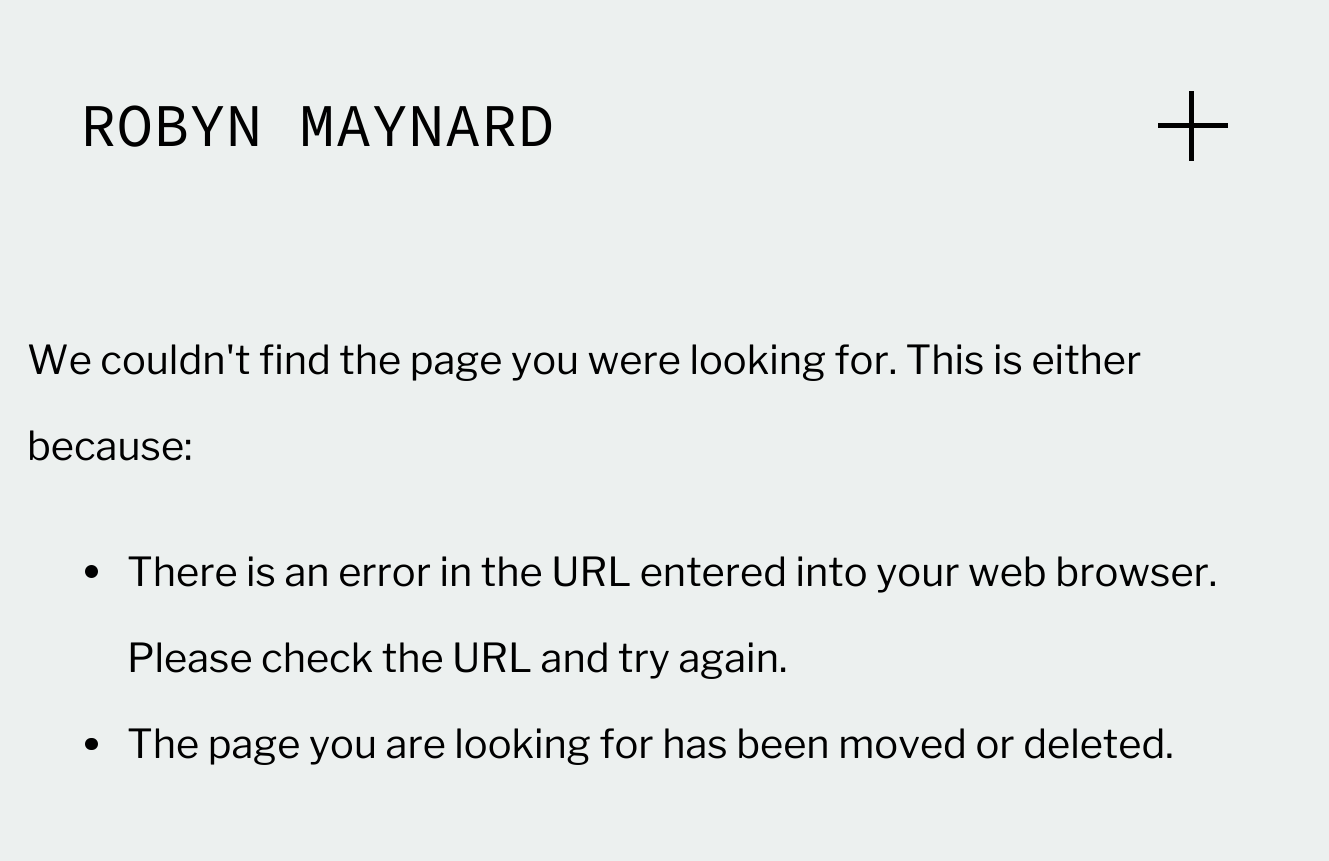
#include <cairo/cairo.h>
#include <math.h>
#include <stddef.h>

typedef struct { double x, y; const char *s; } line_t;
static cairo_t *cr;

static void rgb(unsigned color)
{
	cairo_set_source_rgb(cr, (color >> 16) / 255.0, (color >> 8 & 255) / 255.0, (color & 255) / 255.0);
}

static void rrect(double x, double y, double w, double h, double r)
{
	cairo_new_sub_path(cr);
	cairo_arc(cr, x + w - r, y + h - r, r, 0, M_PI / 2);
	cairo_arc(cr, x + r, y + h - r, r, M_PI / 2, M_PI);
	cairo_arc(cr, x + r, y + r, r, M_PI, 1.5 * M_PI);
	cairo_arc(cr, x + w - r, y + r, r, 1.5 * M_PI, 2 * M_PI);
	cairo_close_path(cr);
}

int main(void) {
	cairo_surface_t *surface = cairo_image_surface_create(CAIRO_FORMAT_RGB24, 1329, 861);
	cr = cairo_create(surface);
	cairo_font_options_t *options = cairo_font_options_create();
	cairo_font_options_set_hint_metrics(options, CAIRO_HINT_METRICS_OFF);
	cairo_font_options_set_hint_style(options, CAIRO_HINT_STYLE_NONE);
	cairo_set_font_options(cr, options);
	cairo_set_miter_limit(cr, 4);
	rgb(0xecf0ef);
	cairo_paint(cr);
	rgb(0x000000);
	cairo_rectangle(cr, 1158, 123, 70, 5);
	cairo_fill(cr);
	cairo_rectangle(cr, 1189, 91, 5, 70);
	cairo_fill(cr);
	cairo_arc(cr, 91.5, 571.5, 6.5, 0, 2 * M_PI);
	cairo_fill(cr);
	rrect(85, 738, 13, 12, 6);
	cairo_fill(cr);
	cairo_select_font_face(cr, "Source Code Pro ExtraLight", CAIRO_FONT_SLANT_NORMAL, CAIRO_FONT_WEIGHT_NORMAL);
	cairo_set_font_size(cr, 60.75);
	cairo_move_to(cr, 80, 146);
	cairo_show_text(cr, "ROBYN MAYNARD");
	cairo_select_font_face(cr, "Libre Franklin", CAIRO_FONT_SLANT_NORMAL, CAIRO_FONT_WEIGHT_NORMAL);
	cairo_set_font_size(cr, 39.85);
	{
		static const line_t items[] = {
			{27, 374, "We couldn't find the page you were looking for. This is either"},
			{27, 460, "because:"},
			{127, 586, "There is an error in the URL entered into your web browser."},
			{127, 672, "Please check the URL and try again."},
			{127, 758, "The page you are looking for has been moved or deleted."},
		};
		for (size_t i = 0; i < sizeof items / sizeof *items; i++) {
			cairo_move_to(cr, items[i].x, items[i].y);
			cairo_show_text(cr, items[i].s);
		}
	}
	cairo_surface_write_to_png(surface, "page.png");
	cairo_font_options_destroy(options);
	cairo_destroy(cr);
	cairo_surface_destroy(surface);
	return 0;
}
